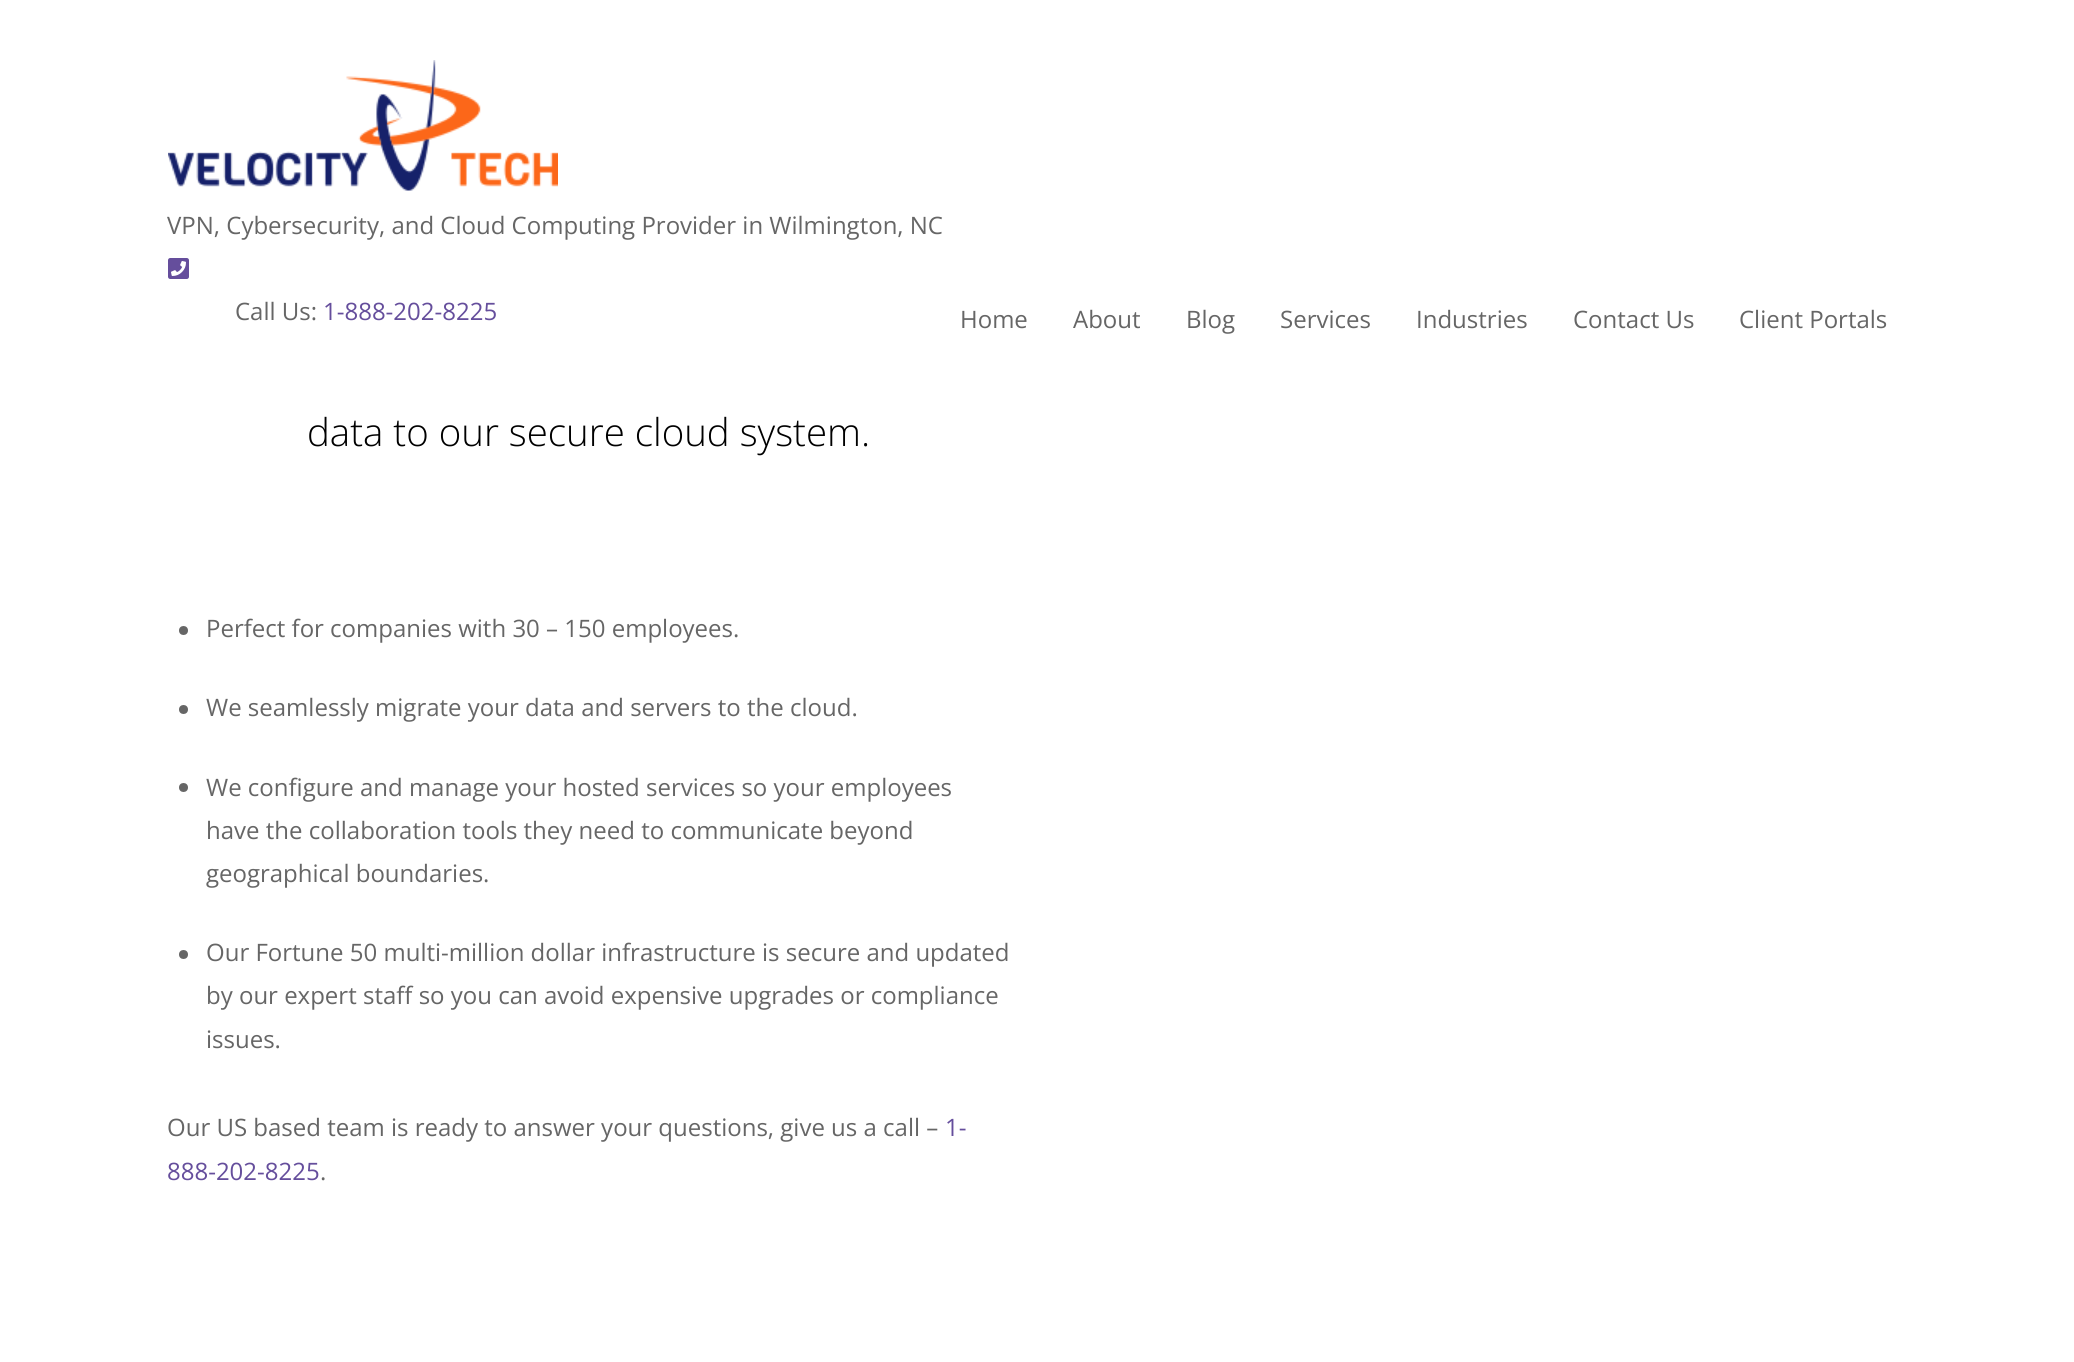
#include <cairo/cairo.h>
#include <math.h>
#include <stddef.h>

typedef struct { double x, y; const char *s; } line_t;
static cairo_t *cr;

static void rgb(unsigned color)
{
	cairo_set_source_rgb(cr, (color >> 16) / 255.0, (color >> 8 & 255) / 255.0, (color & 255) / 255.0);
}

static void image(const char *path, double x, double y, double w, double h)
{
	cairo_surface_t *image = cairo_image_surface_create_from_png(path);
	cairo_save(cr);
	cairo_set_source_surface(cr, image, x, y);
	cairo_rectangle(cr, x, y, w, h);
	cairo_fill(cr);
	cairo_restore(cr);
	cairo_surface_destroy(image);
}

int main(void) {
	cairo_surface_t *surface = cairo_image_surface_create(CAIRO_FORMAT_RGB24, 2074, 1362);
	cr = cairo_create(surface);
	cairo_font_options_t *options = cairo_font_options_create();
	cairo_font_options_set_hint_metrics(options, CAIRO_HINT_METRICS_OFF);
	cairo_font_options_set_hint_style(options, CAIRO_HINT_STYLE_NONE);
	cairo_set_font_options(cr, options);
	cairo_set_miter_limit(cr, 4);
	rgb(0xffffff);
	cairo_paint(cr);
	image("img/1.png", 168, 60, 390, 131);
	image("img/2.png", 168, 258, 21, 21);
	rgb(0x666666);
	cairo_arc(cr, 183.5, 630.5, 4.5, 0, 2 * M_PI);
	cairo_fill(cr);
	cairo_arc(cr, 183.5, 709.5, 4.5, 0, 2 * M_PI);
	cairo_fill(cr);
	cairo_arc(cr, 183.5, 787.5, 4.5, 0, 2 * M_PI);
	cairo_fill(cr);
	cairo_arc(cr, 183.5, 954.5, 4.5, 0, 2 * M_PI);
	cairo_fill(cr);
	cairo_select_font_face(cr, "Open Sans", CAIRO_FONT_SLANT_NORMAL, CAIRO_FONT_WEIGHT_NORMAL);
	cairo_set_font_size(cr, 24);
	cairo_move_to(cr, 167, 234);
	cairo_show_text(cr, "VPN, Cybersecurity, and Cloud Computing Provider in Wilmington, NC");
	cairo_move_to(cr, 235, 320);
	cairo_show_text(cr, "Call Us:");
	rgb(0x654e9c);
	cairo_move_to(cr, 323, 320);
	cairo_show_text(cr, "1-888-202-8225");
	rgb(0x666666);
	{
		static const line_t items[] = {
			{960, 328, "Home"},
			{1073, 328, "About"},
			{1186, 328, "Blog"},
			{1280, 328, "Services"},
			{1416, 328, "Industries"},
			{1573, 328, "Contact Us"},
			{1739, 328, "Client Portals"},
		};
		for (size_t i = 0; i < sizeof items / sizeof *items; i++) {
			cairo_move_to(cr, items[i].x, items[i].y);
			cairo_show_text(cr, items[i].s);
		}
	}
	cairo_select_font_face(cr, "Open Sans Light", CAIRO_FONT_SLANT_NORMAL, CAIRO_FONT_WEIGHT_NORMAL);
	cairo_set_font_size(cr, 38.4);
	rgb(0x000000);
	cairo_move_to(cr, 307, 446);
	cairo_show_text(cr, "data to our secure cloud system.");
	cairo_select_font_face(cr, "Open Sans", CAIRO_FONT_SLANT_NORMAL, CAIRO_FONT_WEIGHT_NORMAL);
	cairo_set_font_size(cr, 24);
	rgb(0x666666);
	{
		static const line_t items[] = {
			{206, 637, "Perfect for companies with 30 – 150 employees."},
			{206, 716, "We seamlessly migrate your data and servers to the cloud."},
			{206, 796, "We configure and manage your hosted services so your employees"},
			{206, 839, "have the collaboration tools they need to communicate beyond"},
			{206, 882, "geographical boundaries."},
			{206, 961, "Our Fortune 50 multi-million dollar infrastructure is secure and updated"},
			{206, 1004, "by our expert staff so you can avoid expensive upgrades or compliance"},
			{206, 1048, "issues."},
			{167, 1136, "Our US based team is ready to answer your questions, give us a call –"},
		};
		for (size_t i = 0; i < sizeof items / sizeof *items; i++) {
			cairo_move_to(cr, items[i].x, items[i].y);
			cairo_show_text(cr, items[i].s);
		}
	}
	rgb(0x654e9c);
	cairo_move_to(cr, 945, 1136);
	cairo_show_text(cr, "1-");
	cairo_move_to(cr, 167, 1180);
	cairo_show_text(cr, "888-202-8225");
	rgb(0x666666);
	cairo_move_to(cr, 320, 1180);
	cairo_show_text(cr, ".");
	cairo_surface_write_to_png(surface, "page.png");
	cairo_font_options_destroy(options);
	cairo_destroy(cr);
	cairo_surface_destroy(surface);
	return 0;
}
